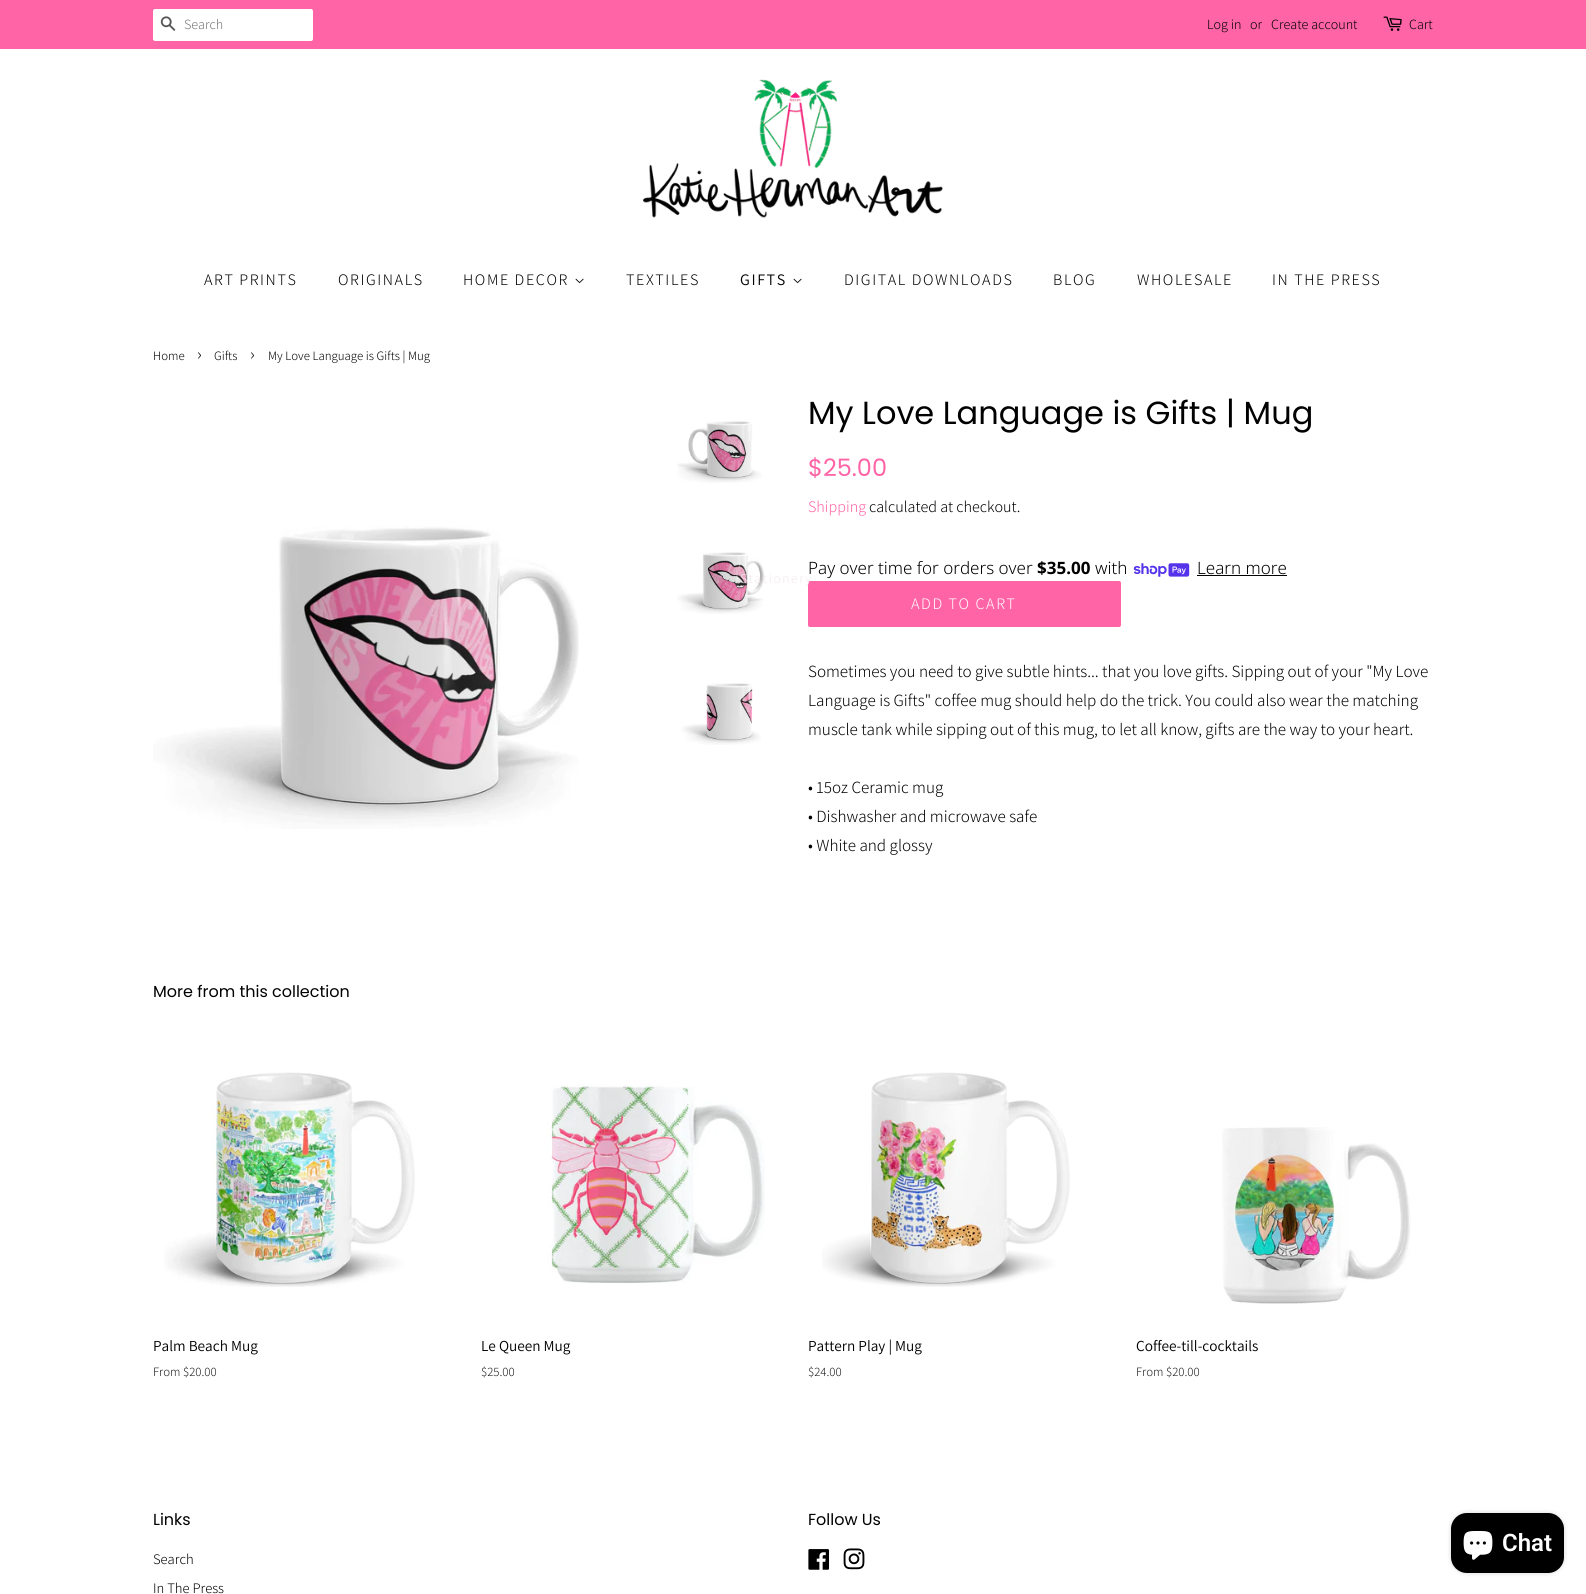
#include <cairo/cairo.h>
#include <math.h>
#include <stddef.h>

typedef struct { double x, y; const char *s; } line_t;
static cairo_t *cr;

static void rgb(unsigned color)
{
	cairo_set_source_rgb(cr, (color >> 16) / 255.0, (color >> 8 & 255) / 255.0, (color & 255) / 255.0);
}

static void tracked(double x, double y, const char *s, double letter, double word)
{
	cairo_move_to(cr, x, y);
	while (*s) {
		char ch[5] = {0};
		int n = 0;
		do ch[n++] = *s++; while ((*s & 0xC0) == 0x80);
		cairo_show_text(cr, ch);
		cairo_rel_move_to(cr, letter + word * (*ch == ' '), 0);
	}
}

static void rrect(double x, double y, double w, double h, double r)
{
	cairo_new_sub_path(cr);
	cairo_arc(cr, x + w - r, y + h - r, r, 0, M_PI / 2);
	cairo_arc(cr, x + r, y + h - r, r, M_PI / 2, M_PI);
	cairo_arc(cr, x + r, y + r, r, M_PI, 1.5 * M_PI);
	cairo_arc(cr, x + w - r, y + r, r, 1.5 * M_PI, 2 * M_PI);
	cairo_close_path(cr);
}

static void soft_shadow(double x, double y, double w, double h, double r, double blur, double alpha)
{
	cairo_push_group_with_content(cr, CAIRO_CONTENT_ALPHA);
	cairo_set_operator(cr, CAIRO_OPERATOR_SOURCE);
	for (int i = 15; i >= -15 && fmin(w, h) + blur * i / 3 > 0; i -= 2) {
		double e = blur * i / 6;
		cairo_set_source_rgba(cr, 0, 0, 0, alpha * erfc((i - 1) / 8.5) / 2);
		rrect(x - e, y - e, w + 2 * e, h + 2 * e, fmax(0, fmin(r + e + blur * .6, fmin(w, h) / 2 + e)));
		cairo_fill(cr);
	}
	cairo_pattern_t *soft = cairo_pop_group(cr);
	cairo_mask(cr, soft);
	cairo_pattern_destroy(soft);
}

static void image(const char *path, double x, double y, double w, double h)
{
	cairo_surface_t *image = cairo_image_surface_create_from_png(path);
	cairo_save(cr);
	cairo_set_source_surface(cr, image, x, y);
	cairo_rectangle(cr, x, y, w, h);
	cairo_fill(cr);
	cairo_restore(cr);
	cairo_surface_destroy(image);
}

int main(void) {
	cairo_surface_t *surface = cairo_image_surface_create(CAIRO_FORMAT_RGB24, 1586, 1594);
	cr = cairo_create(surface);
	cairo_font_options_t *options = cairo_font_options_create();
	cairo_font_options_set_hint_metrics(options, CAIRO_HINT_METRICS_OFF);
	cairo_font_options_set_hint_style(options, CAIRO_HINT_STYLE_NONE);
	cairo_set_font_options(cr, options);
	cairo_set_miter_limit(cr, 4);
	rgb(0xffffff);
	cairo_paint(cr);
	rgb(0xff64a6);
	cairo_rectangle(cr, 0, 0, 1586, 49);
	cairo_fill(cr);
	rgb(0xffffff);
	rrect(153, 9, 160, 32, 2);
	cairo_fill(cr);
	image("img/1.png", 160, 16, 16, 15);
	image("img/2.png", 1383, 16, 19, 15);
	image("img/3.png", 643, 79, 300, 139);
	image("img/4.png", 575, 278, 9, 6);
	image("img/4.png", 793, 278, 9, 6);
	image("img/5.png", 153, 526, 426, 303);
	image("img/6.png", 677, 421, 85, 62);
	image("img/7.png", 677, 552, 87, 62);
	image("img/8.png", 681, 683, 80, 62);
	image("img/9.png", 1133, 563, 57, 14);
	rgb(0x000000);
	cairo_rectangle(cr, 1197, 575, 90, 1);
	cairo_fill(cr);
	rgb(0xff64a6);
	rrect(808, 581, 313, 46, 2);
	cairo_fill(cr);
	image("img/10.png", 164, 1072, 251, 215);
	image("img/11.png", 547, 1084, 218, 200);
	image("img/12.png", 822, 1072, 248, 215);
	image("img/13.png", 1222, 1127, 189, 177);
	image("img/14.png", 808, 1549, 21, 21);
	image("img/15.png", 843, 1548, 22, 22);
	rgb(0x000000);
	soft_shadow(1451, 1513, 113, 60, 16, 2.5, 0.15);
	rgb(0x000000);
	rrect(1451, 1513, 113, 60, 16);
	cairo_fill(cr);
	image("img/16.png", 1463, 1531, 30, 29);
	cairo_select_font_face(cr, "Assistant Light", CAIRO_FONT_SLANT_NORMAL, CAIRO_FONT_WEIGHT_NORMAL);
	cairo_set_font_size(cr, 14);
	rgb(0x757575);
	cairo_move_to(cr, 184, 29);
	cairo_show_text(cr, "Search");
	rgb(0x000000);
	{
		static const line_t items[] = {
			{1207, 29, "Log in"},
			{1250, 29, "or"},
			{1271, 29, "Create account"},
			{1409, 29, "Cart"},
		};
		for (size_t i = 0; i < sizeof items / sizeof *items; i++) {
			cairo_move_to(cr, items[i].x, items[i].y);
			cairo_show_text(cr, items[i].s);
		}
	}
	cairo_set_font_size(cr, 16);
	{
		static const line_t items[] = {
			{204, 285, "ART PRINTS"},
			{338, 285, "ORIGINALS"},
			{463, 285, "HOME DECOR"},
			{626, 285, "TEXTILES"},
		};
		for (size_t i = 0; i < sizeof items / sizeof *items; i++) {
			tracked(items[i].x, items[i].y, items[i].s, 1.6, 0);
		}
	}
	cairo_select_font_face(cr, "Assistant", CAIRO_FONT_SLANT_NORMAL, CAIRO_FONT_WEIGHT_NORMAL);
	tracked(740, 285, "GIFTS", 1.6, 0);
	cairo_select_font_face(cr, "Assistant Light", CAIRO_FONT_SLANT_NORMAL, CAIRO_FONT_WEIGHT_NORMAL);
	{
		static const line_t items[] = {
			{844, 285, "DIGITAL DOWNLOADS"},
			{1053, 285, "BLOG"},
			{1137, 285, "WHOLESALE"},
			{1272, 285, "IN THE PRESS"},
		};
		for (size_t i = 0; i < sizeof items / sizeof *items; i++) {
			tracked(items[i].x, items[i].y, items[i].s, 1.6, 0);
		}
	}
	cairo_set_font_size(cr, 12.75);
	cairo_move_to(cr, 153, 360);
	cairo_show_text(cr, "Home");
	cairo_set_font_size(cr, 18);
	cairo_move_to(cr, 197, 360);
	cairo_show_text(cr, "›");
	cairo_set_font_size(cr, 12.75);
	cairo_move_to(cr, 214, 360);
	cairo_show_text(cr, "Gifts");
	cairo_set_font_size(cr, 18);
	cairo_move_to(cr, 250, 360);
	cairo_show_text(cr, "›");
	cairo_set_font_size(cr, 12.75);
	cairo_move_to(cr, 268, 360);
	cairo_show_text(cr, "My Love Language is Gifts | Mug");
	cairo_select_font_face(cr, "Poppins", CAIRO_FONT_SLANT_NORMAL, CAIRO_FONT_WEIGHT_NORMAL);
	cairo_set_font_size(cr, 32);
	cairo_move_to(cr, 808, 424);
	cairo_show_text(cr, "My Love Language is Gifts | Mug");
	cairo_set_font_size(cr, 24);
	rgb(0xff64a6);
	cairo_move_to(cr, 808, 476);
	cairo_show_text(cr, "$25.00");
	cairo_select_font_face(cr, "Assistant Light", CAIRO_FONT_SLANT_NORMAL, CAIRO_FONT_WEIGHT_NORMAL);
	cairo_set_font_size(cr, 16);
	cairo_move_to(cr, 808, 512);
	cairo_show_text(cr, "Shipping");
	rgb(0x000000);
	cairo_move_to(cr, 869, 512);
	cairo_show_text(cr, "calculated at checkout.");
	cairo_select_font_face(cr, "Noto Sans Light", CAIRO_FONT_SLANT_NORMAL, CAIRO_FONT_WEIGHT_NORMAL);
	cairo_set_font_size(cr, 17);
	cairo_move_to(cr, 808, 574);
	cairo_show_text(cr, "Pay over time for orders over");
	cairo_select_font_face(cr, "Assistant Light", CAIRO_FONT_SLANT_NORMAL, CAIRO_FONT_WEIGHT_NORMAL);
	cairo_set_font_size(cr, 13.5);
	rgb(0xf2eaee);
	tracked(740, 583, "Stationery", 1.6, 0);
	cairo_select_font_face(cr, "Noto Sans", CAIRO_FONT_SLANT_NORMAL, CAIRO_FONT_WEIGHT_BOLD);
	cairo_set_font_size(cr, 17);
	rgb(0x000000);
	cairo_move_to(cr, 1037, 574);
	cairo_show_text(cr, "$35.00");
	cairo_select_font_face(cr, "Noto Sans Light", CAIRO_FONT_SLANT_NORMAL, CAIRO_FONT_WEIGHT_NORMAL);
	cairo_move_to(cr, 1095, 574);
	cairo_show_text(cr, "with");
	cairo_move_to(cr, 1197, 574);
	cairo_show_text(cr, "Learn more");
	cairo_select_font_face(cr, "Assistant Light", CAIRO_FONT_SLANT_NORMAL, CAIRO_FONT_WEIGHT_NORMAL);
	cairo_set_font_size(cr, 16);
	rgb(0xffffff);
	tracked(911, 609, "ADD TO CART", 1.6, 0);
	cairo_set_font_size(cr, 17);
	rgb(0x000000);
	{
		static const line_t items[] = {
			{808, 677, "Sometimes you need to give subtle hints... that you love gifts. Sipping out of your \"My Love"},
			{808, 706, "Language is Gifts\" coffee mug should help do the trick. You could also wear the matching"},
			{808, 735, "muscle tank while sipping out of this mug, to let all know, gifts are the way to your heart."},
			{808, 793, "• 15oz Ceramic mug"},
			{808, 822, "• Dishwasher and microwave safe"},
			{808, 851, "• White and glossy"},
		};
		for (size_t i = 0; i < sizeof items / sizeof *items; i++) {
			cairo_move_to(cr, items[i].x, items[i].y);
			cairo_show_text(cr, items[i].s);
		}
	}
	cairo_select_font_face(cr, "Poppins", CAIRO_FONT_SLANT_NORMAL, CAIRO_FONT_WEIGHT_NORMAL);
	cairo_set_font_size(cr, 16);
	cairo_move_to(cr, 153, 997);
	cairo_show_text(cr, "More from this collection");
	cairo_select_font_face(cr, "Assistant", CAIRO_FONT_SLANT_NORMAL, CAIRO_FONT_WEIGHT_NORMAL);
	cairo_set_font_size(cr, 15.25);
	cairo_move_to(cr, 153, 1351);
	cairo_show_text(cr, "Palm Beach Mug");
	cairo_select_font_face(cr, "Assistant Light", CAIRO_FONT_SLANT_NORMAL, CAIRO_FONT_WEIGHT_NORMAL);
	cairo_set_font_size(cr, 12.75);
	rgb(0x1a1a1a);
	cairo_move_to(cr, 153, 1376);
	cairo_show_text(cr, "From $20.00");
	cairo_select_font_face(cr, "Assistant", CAIRO_FONT_SLANT_NORMAL, CAIRO_FONT_WEIGHT_NORMAL);
	cairo_set_font_size(cr, 15.25);
	rgb(0x000000);
	cairo_move_to(cr, 481, 1351);
	cairo_show_text(cr, "Le Queen Mug");
	cairo_select_font_face(cr, "Assistant Light", CAIRO_FONT_SLANT_NORMAL, CAIRO_FONT_WEIGHT_NORMAL);
	cairo_set_font_size(cr, 12.75);
	rgb(0x1a1a1a);
	cairo_move_to(cr, 481, 1376);
	cairo_show_text(cr, "$25.00");
	cairo_select_font_face(cr, "Assistant", CAIRO_FONT_SLANT_NORMAL, CAIRO_FONT_WEIGHT_NORMAL);
	cairo_set_font_size(cr, 15.25);
	rgb(0x000000);
	cairo_move_to(cr, 808, 1351);
	cairo_show_text(cr, "Pattern Play | Mug");
	cairo_select_font_face(cr, "Assistant Light", CAIRO_FONT_SLANT_NORMAL, CAIRO_FONT_WEIGHT_NORMAL);
	cairo_set_font_size(cr, 12.75);
	rgb(0x1a1a1a);
	cairo_move_to(cr, 808, 1376);
	cairo_show_text(cr, "$24.00");
	cairo_select_font_face(cr, "Assistant", CAIRO_FONT_SLANT_NORMAL, CAIRO_FONT_WEIGHT_NORMAL);
	cairo_set_font_size(cr, 15.25);
	rgb(0x000000);
	cairo_move_to(cr, 1136, 1351);
	cairo_show_text(cr, "Coffee-till-cocktails");
	cairo_select_font_face(cr, "Assistant Light", CAIRO_FONT_SLANT_NORMAL, CAIRO_FONT_WEIGHT_NORMAL);
	cairo_set_font_size(cr, 12.75);
	rgb(0x1a1a1a);
	cairo_move_to(cr, 1136, 1376);
	cairo_show_text(cr, "From $20.00");
	cairo_select_font_face(cr, "Poppins", CAIRO_FONT_SLANT_NORMAL, CAIRO_FONT_WEIGHT_NORMAL);
	cairo_set_font_size(cr, 16);
	rgb(0x000000);
	cairo_move_to(cr, 153, 1525);
	cairo_show_text(cr, "Links");
	cairo_select_font_face(cr, "Assistant Light", CAIRO_FONT_SLANT_NORMAL, CAIRO_FONT_WEIGHT_NORMAL);
	cairo_set_font_size(cr, 14.5);
	cairo_move_to(cr, 153, 1564);
	cairo_show_text(cr, "Search");
	cairo_move_to(cr, 153, 1593);
	cairo_show_text(cr, "In The Press");
	cairo_select_font_face(cr, "Poppins", CAIRO_FONT_SLANT_NORMAL, CAIRO_FONT_WEIGHT_NORMAL);
	cairo_set_font_size(cr, 16);
	cairo_move_to(cr, 808, 1525);
	cairo_show_text(cr, "Follow Us");
	cairo_select_font_face(cr, "Roboto SemiBold", CAIRO_FONT_SLANT_NORMAL, CAIRO_FONT_WEIGHT_NORMAL);
	cairo_set_font_size(cr, 24);
	rgb(0xffffff);
	cairo_move_to(cr, 1502, 1551);
	cairo_show_text(cr, "Chat");
	cairo_surface_write_to_png(surface, "page.png");
	cairo_font_options_destroy(options);
	cairo_destroy(cr);
	cairo_surface_destroy(surface);
	return 0;
}
